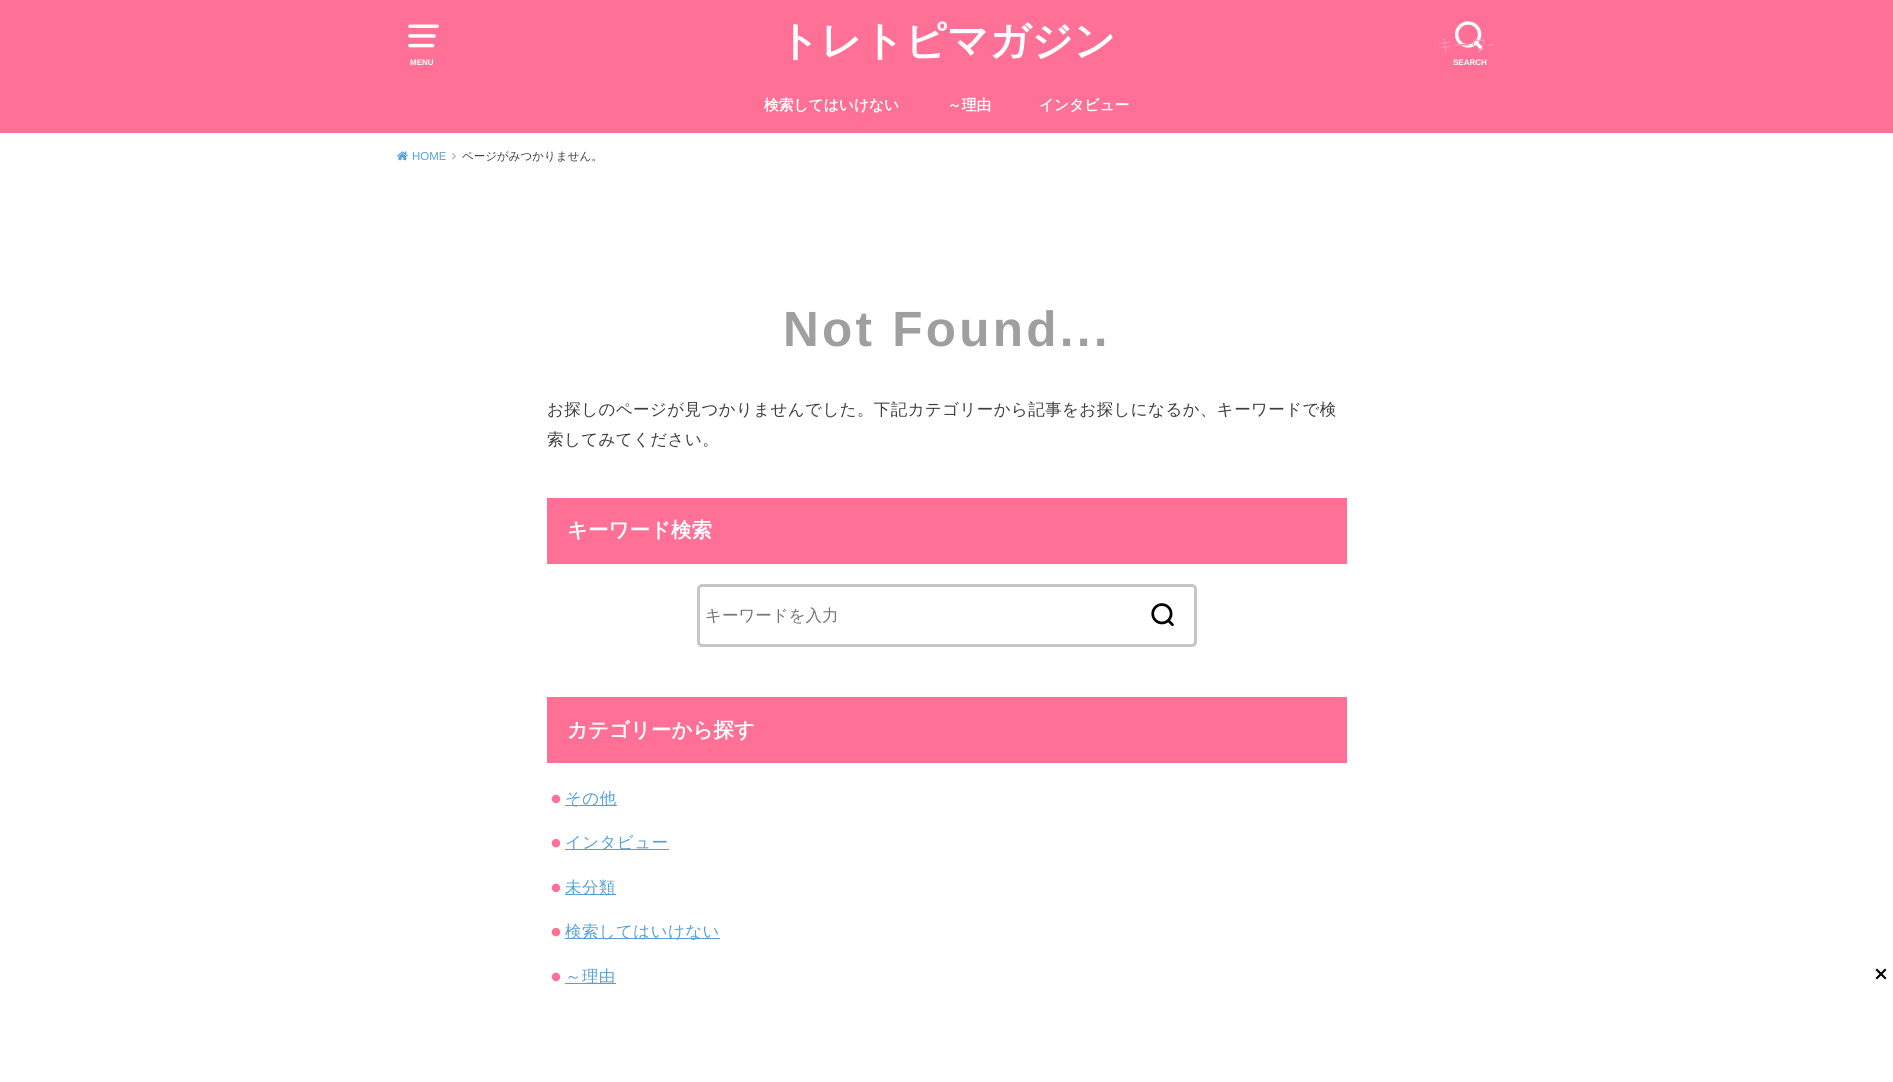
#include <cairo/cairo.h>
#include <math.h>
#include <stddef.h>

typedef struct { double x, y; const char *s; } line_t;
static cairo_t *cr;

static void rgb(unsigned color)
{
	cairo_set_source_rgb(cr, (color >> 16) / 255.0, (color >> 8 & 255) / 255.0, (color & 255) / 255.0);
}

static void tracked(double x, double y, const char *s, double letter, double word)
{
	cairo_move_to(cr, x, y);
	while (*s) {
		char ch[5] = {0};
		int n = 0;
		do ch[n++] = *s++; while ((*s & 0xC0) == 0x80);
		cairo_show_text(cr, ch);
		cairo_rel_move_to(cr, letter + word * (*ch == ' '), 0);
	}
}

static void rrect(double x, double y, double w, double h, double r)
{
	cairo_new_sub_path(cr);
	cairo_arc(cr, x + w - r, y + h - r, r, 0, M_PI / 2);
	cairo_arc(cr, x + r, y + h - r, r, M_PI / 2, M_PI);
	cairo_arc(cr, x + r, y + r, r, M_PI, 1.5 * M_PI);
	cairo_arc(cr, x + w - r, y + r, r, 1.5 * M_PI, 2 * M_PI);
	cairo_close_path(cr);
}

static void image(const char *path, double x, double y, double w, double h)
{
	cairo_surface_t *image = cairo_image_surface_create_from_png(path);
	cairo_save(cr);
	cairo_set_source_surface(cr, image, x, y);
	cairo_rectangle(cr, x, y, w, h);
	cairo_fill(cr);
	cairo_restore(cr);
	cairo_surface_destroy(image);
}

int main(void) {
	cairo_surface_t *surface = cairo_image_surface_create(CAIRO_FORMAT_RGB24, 1893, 1082);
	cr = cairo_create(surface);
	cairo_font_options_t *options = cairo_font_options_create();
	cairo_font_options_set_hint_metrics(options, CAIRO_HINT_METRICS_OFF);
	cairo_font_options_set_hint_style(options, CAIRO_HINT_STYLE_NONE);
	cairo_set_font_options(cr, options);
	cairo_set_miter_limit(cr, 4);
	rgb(0xffffff);
	cairo_paint(cr);
	rgb(0xff7096);
	cairo_rectangle(cr, 0, 0, 1893, 133);
	cairo_fill(cr);
	image("img/1.png", 408, 24, 31, 24);
	image("img/2.png", 1454, 21, 29, 29);
	image("img/3.png", 397, 151, 11, 10);
	image("img/4.png", 452, 153, 4, 7);
	cairo_rectangle(cr, 547, 498, 800, 66);
	cairo_fill(cr);
	rrect(698.5, 585.5, 497, 60, 3.5);
	rgb(0xc6c6c6);
	cairo_set_line_width(cr, 3);
	cairo_stroke(cr);
	image("img/5.png", 1151, 603, 23, 24);
	rgb(0xff7096);
	cairo_rectangle(cr, 547, 697, 800, 66);
	cairo_fill(cr);
	image("img/6.png", 551, 794, 10, 10);
	rgb(0x57a1d8);
	cairo_rectangle(cr, 565, 805, 52, 1);
	cairo_fill(cr);
	image("img/7.png", 551, 838, 10, 10);
	cairo_rectangle(cr, 565, 849, 104, 1);
	cairo_fill(cr);
	image("img/8.png", 551, 883, 10, 10);
	cairo_rectangle(cr, 565, 894, 51, 1);
	cairo_fill(cr);
	image("img/9.png", 551, 927, 10, 10);
	cairo_rectangle(cr, 565, 938, 155, 1);
	cairo_fill(cr);
	image("img/10.png", 551, 972, 10, 10);
	cairo_rectangle(cr, 565, 983, 51, 1);
	cairo_fill(cr);
	rgb(0x000000);
	cairo_new_path(cr);
	cairo_move_to(cr, 1885, 968.5);
	cairo_line_to(cr, 1886.5, 970);
	cairo_line_to(cr, 1877, 979.5);
	cairo_line_to(cr, 1875.5, 978);
	cairo_close_path(cr);
	cairo_fill(cr);
	cairo_new_path(cr);
	cairo_move_to(cr, 1875.5, 970);
	cairo_line_to(cr, 1877, 968.5);
	cairo_line_to(cr, 1886.5, 978);
	cairo_line_to(cr, 1885, 979.5);
	cairo_close_path(cr);
	cairo_fill(cr);
	cairo_select_font_face(cr, "Liberation Sans", CAIRO_FONT_SLANT_NORMAL, CAIRO_FONT_WEIGHT_BOLD);
	cairo_set_font_size(cr, 8);
	rgb(0xffffff);
	cairo_move_to(cr, 410, 65);
	cairo_show_text(cr, "MENU");
	cairo_select_font_face(cr, "WenQuanYi Zen Hei", CAIRO_FONT_SLANT_NORMAL, CAIRO_FONT_WEIGHT_BOLD);
	cairo_set_font_size(cr, 41.25);
	cairo_move_to(cr, 778, 55);
	cairo_show_text(cr, "トレトピマガジン");
	cairo_save(cr);
	cairo_rectangle(cr, 1437, 35, 56, 22);
	cairo_clip(cr);
	cairo_select_font_face(cr, "WenQuanYi Zen Hei Medium", CAIRO_FONT_SLANT_NORMAL, CAIRO_FONT_WEIGHT_NORMAL);
	cairo_set_font_size(cr, 16.5);
	rgb(0xff91ae);
	cairo_move_to(cr, 1437, 51);
	cairo_show_text(cr, "キーワー");
	cairo_restore(cr);
	cairo_select_font_face(cr, "Liberation Sans", CAIRO_FONT_SLANT_NORMAL, CAIRO_FONT_WEIGHT_BOLD);
	cairo_set_font_size(cr, 8);
	cairo_move_to(cr, 1453, 65);
	cairo_show_text(cr, "SEARCH");
	cairo_select_font_face(cr, "WenQuanYi Zen Hei", CAIRO_FONT_SLANT_NORMAL, CAIRO_FONT_WEIGHT_BOLD);
	cairo_set_font_size(cr, 14.75);
	{
		static const line_t items[] = {
			{764, 110, "検索してはいけない"},
			{947, 110, "～理由"},
			{1039, 110, "インタビュー"},
		};
		for (size_t i = 0; i < sizeof items / sizeof *items; i++) {
			cairo_move_to(cr, items[i].x, items[i].y);
			cairo_show_text(cr, items[i].s);
		}
	}
	cairo_select_font_face(cr, "Liberation Sans", CAIRO_FONT_SLANT_NORMAL, CAIRO_FONT_WEIGHT_NORMAL);
	cairo_set_font_size(cr, 11.5);
	rgb(0x57a1d8);
	cairo_move_to(cr, 412, 160);
	cairo_show_text(cr, "HOME");
	cairo_select_font_face(cr, "WenQuanYi Zen Hei Medium", CAIRO_FONT_SLANT_NORMAL, CAIRO_FONT_WEIGHT_NORMAL);
	rgb(0x3e3e3e);
	cairo_move_to(cr, 462, 160);
	cairo_show_text(cr, "ページがみつかりません。");
	cairo_select_font_face(cr, "Liberation Sans", CAIRO_FONT_SLANT_NORMAL, CAIRO_FONT_WEIGHT_BOLD);
	cairo_set_font_size(cr, 49.5);
	rgb(0x9f9f9f);
	tracked(783, 346, "Not Found...", 3.25, 0);
	cairo_select_font_face(cr, "WenQuanYi Zen Hei Medium", CAIRO_FONT_SLANT_NORMAL, CAIRO_FONT_WEIGHT_NORMAL);
	cairo_set_font_size(cr, 16.5);
	rgb(0x3e3e3e);
	tracked(547, 415, "お探しのページが見つかりませんでした。下記カテゴリーから記事をお探しになるか、キーワードで検", 0.4, 0);
	tracked(547, 445, "索してみてください。", 0.4, 0);
	cairo_select_font_face(cr, "WenQuanYi Zen Hei", CAIRO_FONT_SLANT_NORMAL, CAIRO_FONT_WEIGHT_BOLD);
	cairo_set_font_size(cr, 20.5);
	rgb(0xffffff);
	cairo_move_to(cr, 567, 537);
	cairo_show_text(cr, "キーワード検索");
	cairo_select_font_face(cr, "WenQuanYi Zen Hei Medium", CAIRO_FONT_SLANT_NORMAL, CAIRO_FONT_WEIGHT_NORMAL);
	cairo_set_font_size(cr, 16.5);
	rgb(0x757575);
	cairo_move_to(cr, 705, 621);
	cairo_show_text(cr, "キーワードを入力");
	cairo_select_font_face(cr, "WenQuanYi Zen Hei", CAIRO_FONT_SLANT_NORMAL, CAIRO_FONT_WEIGHT_BOLD);
	cairo_set_font_size(cr, 20.5);
	rgb(0xffffff);
	cairo_move_to(cr, 567, 737);
	cairo_show_text(cr, "カテゴリーから探す");
	cairo_select_font_face(cr, "WenQuanYi Zen Hei Medium", CAIRO_FONT_SLANT_NORMAL, CAIRO_FONT_WEIGHT_NORMAL);
	cairo_set_font_size(cr, 16.5);
	rgb(0x57a1d8);
	{
		static const line_t items[] = {
			{565, 804, "その他"},
			{565, 848, "インタビュー"},
			{565, 893, "未分類"},
			{565, 937, "検索してはいけない"},
			{565, 982, "～理由"},
		};
		for (size_t i = 0; i < sizeof items / sizeof *items; i++) {
			tracked(items[i].x, items[i].y, items[i].s, 0.4, 0);
		}
	}
	cairo_surface_write_to_png(surface, "page.png");
	cairo_font_options_destroy(options);
	cairo_destroy(cr);
	cairo_surface_destroy(surface);
	return 0;
}
